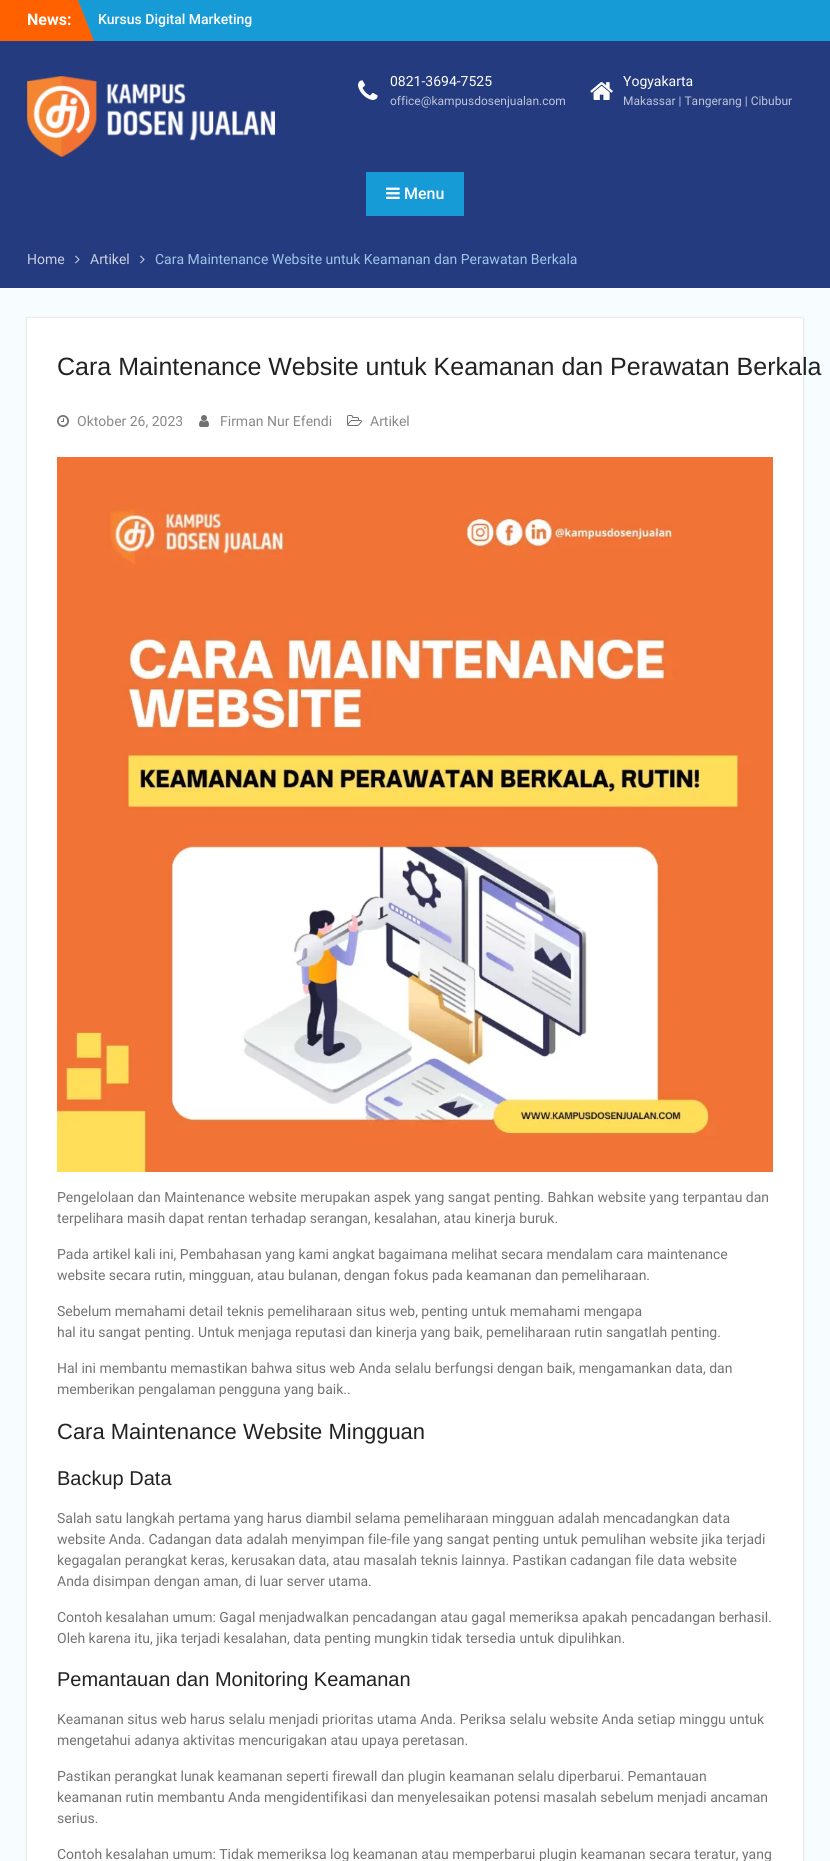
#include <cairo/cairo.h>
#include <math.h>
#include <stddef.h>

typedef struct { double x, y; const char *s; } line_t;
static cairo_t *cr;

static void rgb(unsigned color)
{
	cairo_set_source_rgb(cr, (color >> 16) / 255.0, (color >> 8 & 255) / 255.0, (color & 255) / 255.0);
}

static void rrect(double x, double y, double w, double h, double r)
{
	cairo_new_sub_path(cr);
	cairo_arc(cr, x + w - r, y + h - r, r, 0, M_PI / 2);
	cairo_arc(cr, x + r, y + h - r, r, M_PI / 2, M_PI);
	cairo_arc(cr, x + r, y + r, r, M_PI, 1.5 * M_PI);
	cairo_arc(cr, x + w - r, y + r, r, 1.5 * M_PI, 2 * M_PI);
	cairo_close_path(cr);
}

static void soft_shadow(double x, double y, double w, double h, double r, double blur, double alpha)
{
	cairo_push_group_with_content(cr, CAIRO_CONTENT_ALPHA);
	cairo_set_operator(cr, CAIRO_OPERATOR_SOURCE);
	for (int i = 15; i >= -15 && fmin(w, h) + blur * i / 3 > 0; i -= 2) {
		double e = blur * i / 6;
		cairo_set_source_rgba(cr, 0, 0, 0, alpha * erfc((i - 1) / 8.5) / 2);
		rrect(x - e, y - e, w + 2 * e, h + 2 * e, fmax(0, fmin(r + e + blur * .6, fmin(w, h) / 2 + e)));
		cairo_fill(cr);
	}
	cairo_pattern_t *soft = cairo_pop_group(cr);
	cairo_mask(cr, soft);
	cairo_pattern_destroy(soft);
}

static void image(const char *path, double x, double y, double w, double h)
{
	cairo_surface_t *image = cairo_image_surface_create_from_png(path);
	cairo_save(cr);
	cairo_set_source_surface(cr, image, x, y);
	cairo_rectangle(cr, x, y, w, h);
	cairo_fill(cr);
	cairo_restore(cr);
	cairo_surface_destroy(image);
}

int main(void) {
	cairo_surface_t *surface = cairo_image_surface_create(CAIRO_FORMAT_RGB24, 830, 1861);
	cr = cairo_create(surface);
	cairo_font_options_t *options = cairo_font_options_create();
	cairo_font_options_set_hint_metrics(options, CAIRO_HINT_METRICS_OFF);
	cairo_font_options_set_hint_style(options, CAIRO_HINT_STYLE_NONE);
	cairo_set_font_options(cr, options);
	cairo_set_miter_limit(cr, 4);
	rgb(0xf7fcfe);
	cairo_paint(cr);
	rgb(0x179bd7);
	cairo_rectangle(cr, 78, 0, 752, 41);
	cairo_fill(cr);
	rgb(0xff6000);
	cairo_rectangle(cr, 0, 0, 78, 41);
	cairo_fill(cr);
	cairo_new_path(cr);
	cairo_move_to(cr, 78, 41);
	cairo_line_to(cr, 78, 0);
	cairo_line_to(cr, 94, 41);
	cairo_close_path(cr);
	cairo_fill(cr);
	rgb(0x253b80);
	cairo_rectangle(cr, 0, 41, 830, 247);
	cairo_fill(cr);
	image("img/1.png", 27, 76, 248, 81);
	image("img/2.png", 358, 80, 20, 20);
	image("img/3.png", 590, 82, 23, 18);
	rgb(0x179bd7);
	cairo_rectangle(cr, 366, 172, 98, 44);
	cairo_fill(cr);
	image("img/4.png", 386, 187, 14, 12);
	image("img/5.png", 75, 255, 5, 9);
	image("img/5.png", 140, 255, 5, 9);
	rgb(0xcfcfcf);
	soft_shadow(27, 318, 776, 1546, 0, 1, 1);
	rgb(0xffffff);
	cairo_rectangle(cr, 27, 318, 776, 1543);
	cairo_fill(cr);
	image("img/6.png", 57, 415, 12, 12);
	image("img/7.png", 199, 415, 10, 12);
	image("img/8.png", 347, 415, 15, 11);
	image("img/9.png", 57, 457, 716, 715);
	cairo_select_font_face(cr, "Roboto", CAIRO_FONT_SLANT_NORMAL, CAIRO_FONT_WEIGHT_BOLD);
	cairo_set_font_size(cr, 16);
	cairo_move_to(cr, 27, 25);
	cairo_show_text(cr, "News:");
	cairo_select_font_face(cr, "Roboto Medium", CAIRO_FONT_SLANT_NORMAL, CAIRO_FONT_WEIGHT_NORMAL);
	cairo_set_font_size(cr, 14);
	cairo_move_to(cr, 98, 24);
	cairo_show_text(cr, "Kursus Digital Marketing");
	cairo_select_font_face(cr, "Roboto", CAIRO_FONT_SLANT_NORMAL, CAIRO_FONT_WEIGHT_NORMAL);
	cairo_move_to(cr, 390, 86);
	cairo_show_text(cr, "0821-3694-7525");
	cairo_set_font_size(cr, 12);
	rgb(0xbec4d9);
	cairo_move_to(cr, 390, 105);
	cairo_show_text(cr, "office@kampusdosenjualan.com");
	cairo_set_font_size(cr, 14);
	rgb(0xffffff);
	cairo_move_to(cr, 623, 86);
	cairo_show_text(cr, "Yogyakarta");
	cairo_set_font_size(cr, 12);
	rgb(0xbec4d9);
	cairo_move_to(cr, 623, 105);
	cairo_show_text(cr, "Makassar | Tangerang | Cibubur");
	cairo_select_font_face(cr, "Roboto Medium", CAIRO_FONT_SLANT_NORMAL, CAIRO_FONT_WEIGHT_NORMAL);
	cairo_set_font_size(cr, 16);
	rgb(0xffffff);
	cairo_move_to(cr, 404, 199);
	cairo_show_text(cr, "Menu");
	cairo_select_font_face(cr, "Roboto", CAIRO_FONT_SLANT_NORMAL, CAIRO_FONT_WEIGHT_NORMAL);
	cairo_set_font_size(cr, 14);
	rgb(0xcbd0e1);
	cairo_move_to(cr, 27, 264);
	cairo_show_text(cr, "Home");
	cairo_move_to(cr, 90, 264);
	cairo_show_text(cr, "Artikel");
	rgb(0xa0c5e8);
	cairo_move_to(cr, 155, 264);
	cairo_show_text(cr, "Cara Maintenance Website untuk Keamanan dan Perawatan Berkala");
	cairo_select_font_face(cr, "Liberation Sans", CAIRO_FONT_SLANT_NORMAL, CAIRO_FONT_WEIGHT_NORMAL);
	cairo_set_font_size(cr, 25);
	rgb(0x222222);
	cairo_move_to(cr, 57, 375);
	cairo_show_text(cr, "Cara Maintenance Website untuk Keamanan dan Perawatan Berkala");
	cairo_select_font_face(cr, "Roboto", CAIRO_FONT_SLANT_NORMAL, CAIRO_FONT_WEIGHT_NORMAL);
	cairo_set_font_size(cr, 14);
	rgb(0x888888);
	{
		static const line_t items[] = {
			{77, 426, "Oktober 26, 2023"},
			{220, 426, "Firman Nur Efendi"},
			{370, 426, "Artikel"},
		};
		for (size_t i = 0; i < sizeof items / sizeof *items; i++) {
			cairo_move_to(cr, items[i].x, items[i].y);
			cairo_show_text(cr, items[i].s);
		}
	}
	rgb(0x727272);
	{
		static const line_t items[] = {
			{57, 1202, "Pengelolaan dan Maintenance website merupakan aspek yang sangat penting. Bahkan website yang terpantau dan"},
			{57, 1223, "terpelihara masih dapat rentan terhadap serangan, kesalahan, atau kinerja buruk."},
			{57, 1259, "Pada artikel kali ini, Pembahasan yang kami angkat bagaimana melihat secara mendalam cara maintenance"},
			{57, 1280, "website secara rutin, mingguan, atau bulanan, dengan fokus pada keamanan dan pemeliharaan."},
			{57, 1316, "Sebelum memahami detail teknis pemeliharaan situs web, penting untuk memahami mengapa"},
			{57, 1337, "hal itu sangat penting. Untuk menjaga reputasi dan kinerja yang baik, pemeliharaan rutin sangatlah penting."},
			{57, 1373, "Hal ini membantu memastikan bahwa situs web Anda selalu berfungsi dengan baik, mengamankan data, dan"},
			{57, 1394, "memberikan pengalaman pengguna yang baik.."},
		};
		for (size_t i = 0; i < sizeof items / sizeof *items; i++) {
			cairo_move_to(cr, items[i].x, items[i].y);
			cairo_show_text(cr, items[i].s);
		}
	}
	cairo_select_font_face(cr, "Liberation Sans", CAIRO_FONT_SLANT_NORMAL, CAIRO_FONT_WEIGHT_NORMAL);
	cairo_set_font_size(cr, 22);
	rgb(0x222222);
	cairo_move_to(cr, 57, 1439);
	cairo_show_text(cr, "Cara Maintenance Website Mingguan");
	cairo_set_font_size(cr, 20);
	cairo_move_to(cr, 57, 1485);
	cairo_show_text(cr, "Backup Data");
	cairo_select_font_face(cr, "Roboto", CAIRO_FONT_SLANT_NORMAL, CAIRO_FONT_WEIGHT_NORMAL);
	cairo_set_font_size(cr, 14);
	rgb(0x727272);
	{
		static const line_t items[] = {
			{57, 1523, "Salah satu langkah pertama yang harus diambil selama pemeliharaan mingguan adalah mencadangkan data"},
			{57, 1544, "website Anda. Cadangan data adalah menyimpan file-file yang sangat penting untuk pemulihan website jika terjadi"},
			{57, 1565, "kegagalan perangkat keras, kerusakan data, atau masalah teknis lainnya. Pastikan cadangan file data website"},
			{57, 1586, "Anda disimpan dengan aman, di luar server utama."},
			{57, 1622, "Contoh kesalahan umum: Gagal menjadwalkan pencadangan atau gagal memeriksa apakah pencadangan berhasil."},
			{57, 1643, "Oleh karena itu, jika terjadi kesalahan, data penting mungkin tidak tersedia untuk dipulihkan."},
		};
		for (size_t i = 0; i < sizeof items / sizeof *items; i++) {
			cairo_move_to(cr, items[i].x, items[i].y);
			cairo_show_text(cr, items[i].s);
		}
	}
	cairo_select_font_face(cr, "Liberation Sans", CAIRO_FONT_SLANT_NORMAL, CAIRO_FONT_WEIGHT_NORMAL);
	cairo_set_font_size(cr, 20);
	rgb(0x222222);
	cairo_move_to(cr, 57, 1686);
	cairo_show_text(cr, "Pemantauan dan Monitoring Keamanan");
	cairo_select_font_face(cr, "Roboto", CAIRO_FONT_SLANT_NORMAL, CAIRO_FONT_WEIGHT_NORMAL);
	cairo_set_font_size(cr, 14);
	rgb(0x727272);
	{
		static const line_t items[] = {
			{57, 1724, "Keamanan situs web harus selalu menjadi prioritas utama Anda. Periksa selalu website Anda setiap minggu untuk"},
			{57, 1745, "mengetahui adanya aktivitas mencurigakan atau upaya peretasan."},
			{57, 1781, "Pastikan perangkat lunak keamanan seperti firewall dan plugin keamanan selalu diperbarui. Pemantauan"},
			{57, 1802, "keamanan rutin membantu Anda mengidentifikasi dan menyelesaikan potensi masalah sebelum menjadi ancaman"},
			{57, 1823, "serius."},
			{57, 1859, "Contoh kesalahan umum: Tidak memeriksa log keamanan atau memperbarui plugin keamanan secara teratur, yang"},
		};
		for (size_t i = 0; i < sizeof items / sizeof *items; i++) {
			cairo_move_to(cr, items[i].x, items[i].y);
			cairo_show_text(cr, items[i].s);
		}
	}
	cairo_surface_write_to_png(surface, "page.png");
	cairo_font_options_destroy(options);
	cairo_destroy(cr);
	cairo_surface_destroy(surface);
	return 0;
}
